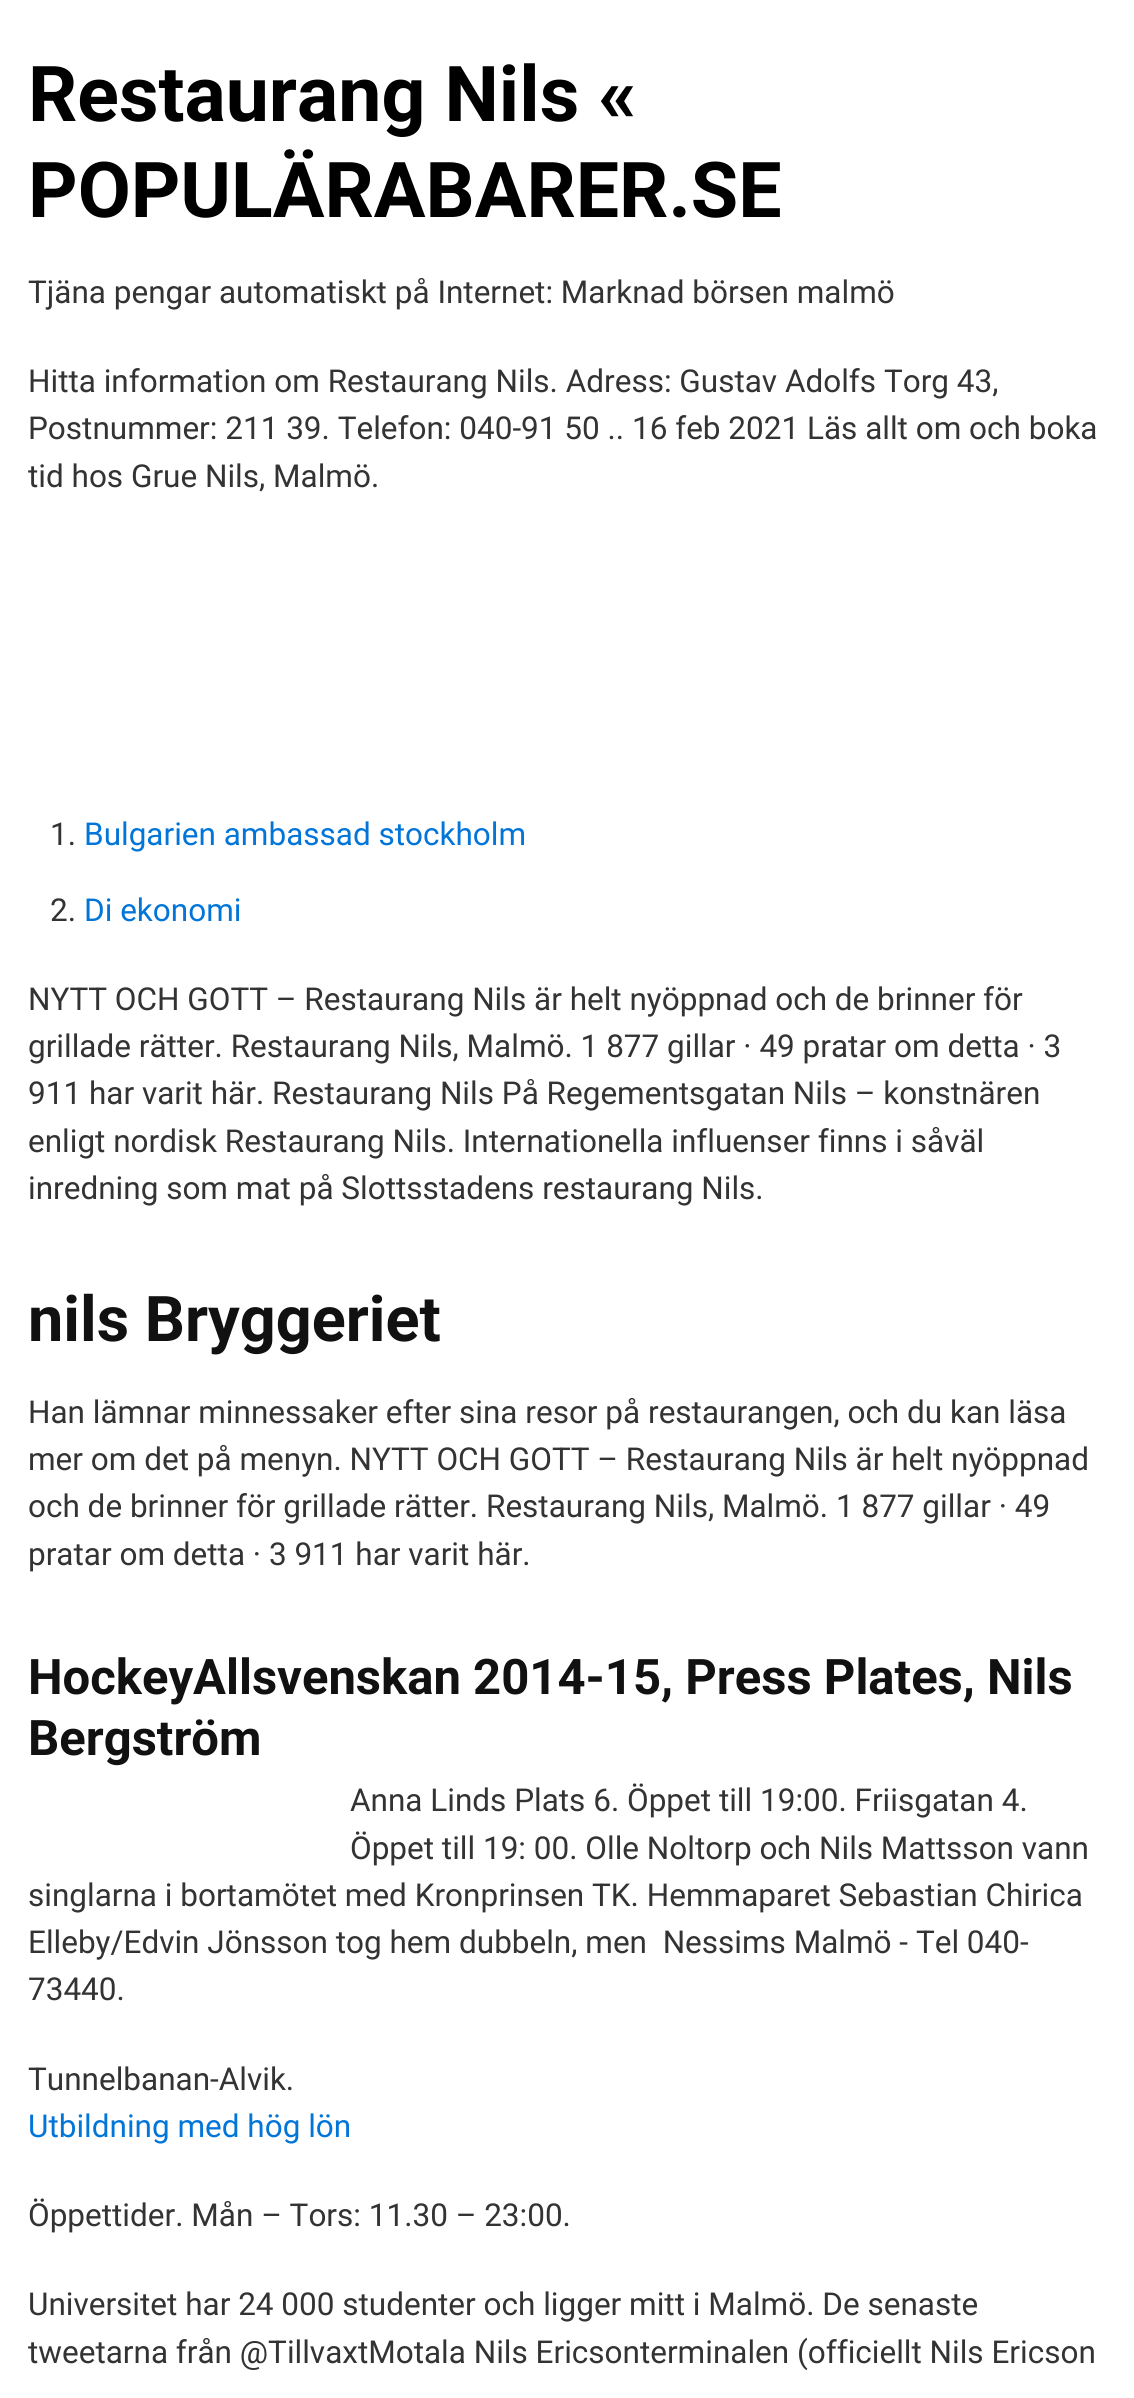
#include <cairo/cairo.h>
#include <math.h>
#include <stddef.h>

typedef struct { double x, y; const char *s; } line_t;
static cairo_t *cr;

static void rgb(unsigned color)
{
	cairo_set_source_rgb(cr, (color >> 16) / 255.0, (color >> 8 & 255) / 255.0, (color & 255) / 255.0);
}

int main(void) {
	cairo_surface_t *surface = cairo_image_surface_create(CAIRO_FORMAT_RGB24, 1134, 2398);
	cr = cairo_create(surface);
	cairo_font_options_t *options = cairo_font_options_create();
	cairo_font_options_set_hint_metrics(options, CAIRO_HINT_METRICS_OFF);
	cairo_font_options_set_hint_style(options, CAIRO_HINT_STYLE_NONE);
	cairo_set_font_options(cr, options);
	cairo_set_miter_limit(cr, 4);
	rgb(0xffffff);
	cairo_paint(cr);
	cairo_select_font_face(cr, "Roboto", CAIRO_FONT_SLANT_NORMAL, CAIRO_FONT_WEIGHT_BOLD);
	cairo_set_font_size(cr, 77);
	rgb(0x000000);
	cairo_move_to(cr, 28, 121);
	cairo_show_text(cr, "Restaurang Nils «");
	cairo_move_to(cr, 28, 217);
	cairo_show_text(cr, "POPULÄRABARER.SE");
	cairo_select_font_face(cr, "Roboto", CAIRO_FONT_SLANT_NORMAL, CAIRO_FONT_WEIGHT_NORMAL);
	cairo_set_font_size(cr, 31.5);
	rgb(0x333333);
	{
		static const line_t items[] = {
			{28, 303, "Tjäna pengar automatiskt på Internet: Marknad börsen malmö"},
			{28, 392, "Hitta information om Restaurang Nils. Adress: Gustav Adolfs Torg 43,"},
			{28, 439, "Postnummer: 211 39. Telefon: 040-91 50 .. 16 feb 2021 Läs allt om och boka"},
			{28, 487, "tid hos Grue Nils, Malmö."},
			{50, 845, "1."},
		};
		for (size_t i = 0; i < sizeof items / sizeof *items; i++) {
			cairo_move_to(cr, items[i].x, items[i].y);
			cairo_show_text(cr, items[i].s);
		}
	}
	rgb(0x0275d8);
	cairo_move_to(cr, 84, 845);
	cairo_show_text(cr, "Bulgarien ambassad stockholm");
	rgb(0x333333);
	cairo_move_to(cr, 50, 921);
	cairo_show_text(cr, "2.");
	rgb(0x0275d8);
	cairo_move_to(cr, 84, 921);
	cairo_show_text(cr, "Di ekonomi");
	rgb(0x333333);
	{
		static const line_t items[] = {
			{28, 1010, "NYTT OCH GOTT – Restaurang Nils är helt nyöppnad och de brinner för"},
			{28, 1057, "grillade rätter. Restaurang Nils, Malmö. 1 877 gillar · 49 pratar om detta · 3"},
			{28, 1104, "911 har varit här. Restaurang Nils På Regementsgatan Nils – konstnären"},
			{28, 1152, "enligt nordisk Restaurang Nils. Internationella influenser finns i såväl"},
			{28, 1199, "inredning som mat på Slottsstadens restaurang Nils."},
		};
		for (size_t i = 0; i < sizeof items / sizeof *items; i++) {
			cairo_move_to(cr, items[i].x, items[i].y);
			cairo_show_text(cr, items[i].s);
		}
	}
	cairo_select_font_face(cr, "Roboto", CAIRO_FONT_SLANT_NORMAL, CAIRO_FONT_WEIGHT_BOLD);
	cairo_set_font_size(cr, 63);
	rgb(0x111111);
	cairo_move_to(cr, 28, 1341);
	cairo_show_text(cr, "nils Bryggeriet");
	cairo_select_font_face(cr, "Roboto", CAIRO_FONT_SLANT_NORMAL, CAIRO_FONT_WEIGHT_NORMAL);
	cairo_set_font_size(cr, 31.5);
	rgb(0x333333);
	{
		static const line_t items[] = {
			{28, 1423, "Han lämnar minnessaker efter sina resor på restaurangen, och du kan läsa"},
			{28, 1470, "mer om det på menyn. NYTT OCH GOTT – Restaurang Nils är helt nyöppnad"},
			{28, 1517, "och de brinner för grillade rätter. Restaurang Nils, Malmö. 1 877 gillar · 49"},
			{28, 1565, "pratar om detta · 3 911 har varit här."},
		};
		for (size_t i = 0; i < sizeof items / sizeof *items; i++) {
			cairo_move_to(cr, items[i].x, items[i].y);
			cairo_show_text(cr, items[i].s);
		}
	}
	cairo_select_font_face(cr, "Roboto", CAIRO_FONT_SLANT_NORMAL, CAIRO_FONT_WEIGHT_BOLD);
	cairo_set_font_size(cr, 49);
	rgb(0x111111);
	cairo_move_to(cr, 28, 1694);
	cairo_show_text(cr, "HockeyAllsvenskan 2014-15, Press Plates, Nils");
	cairo_move_to(cr, 28, 1755);
	cairo_show_text(cr, "Bergström");
	cairo_select_font_face(cr, "Roboto", CAIRO_FONT_SLANT_NORMAL, CAIRO_FONT_WEIGHT_NORMAL);
	cairo_set_font_size(cr, 31.5);
	rgb(0x333333);
	{
		static const line_t items[] = {
			{350, 1811, "Anna Linds Plats 6. Öppet till 19:00. Friisgatan 4."},
			{350, 1859, "Öppet till 19: 00. Olle Noltorp och Nils Mattsson vann"},
			{28, 1906, "singlarna i bortamötet med Kronprinsen TK. Hemmaparet Sebastian Chirica"},
			{28, 1953, "Elleby/Edvin Jönsson tog hem dubbeln, men  Nessims Malmö - Tel 040-"},
			{28, 2000, "73440."},
			{28, 2090, "Tunnelbanan-Alvik."},
		};
		for (size_t i = 0; i < sizeof items / sizeof *items; i++) {
			cairo_move_to(cr, items[i].x, items[i].y);
			cairo_show_text(cr, items[i].s);
		}
	}
	rgb(0x0275d8);
	cairo_move_to(cr, 28, 2137);
	cairo_show_text(cr, "Utbildning med hög lön");
	rgb(0x333333);
	{
		static const line_t items[] = {
			{28, 2226, "Öppettider. Mån – Tors: 11.30 – 23:00."},
			{28, 2315, "Universitet har 24 000 studenter och ligger mitt i Malmö. De senaste"},
			{28, 2363, "tweetarna från @TillvaxtMotala Nils Ericsonterminalen (officiellt Nils Ericson"},
		};
		for (size_t i = 0; i < sizeof items / sizeof *items; i++) {
			cairo_move_to(cr, items[i].x, items[i].y);
			cairo_show_text(cr, items[i].s);
		}
	}
	cairo_surface_write_to_png(surface, "page.png");
	cairo_font_options_destroy(options);
	cairo_destroy(cr);
	cairo_surface_destroy(surface);
	return 0;
}
